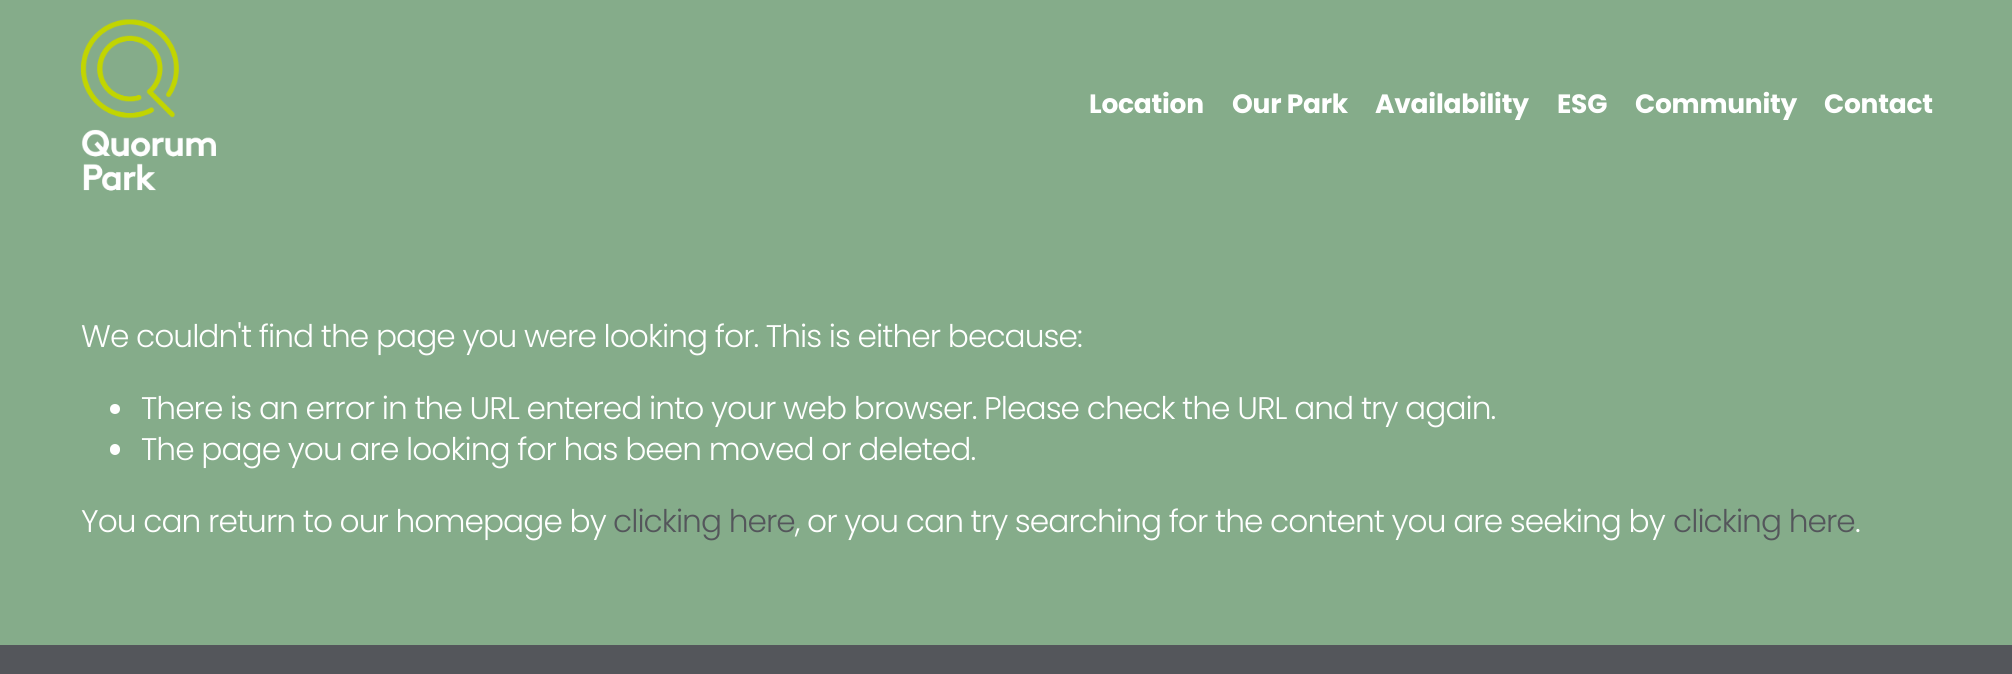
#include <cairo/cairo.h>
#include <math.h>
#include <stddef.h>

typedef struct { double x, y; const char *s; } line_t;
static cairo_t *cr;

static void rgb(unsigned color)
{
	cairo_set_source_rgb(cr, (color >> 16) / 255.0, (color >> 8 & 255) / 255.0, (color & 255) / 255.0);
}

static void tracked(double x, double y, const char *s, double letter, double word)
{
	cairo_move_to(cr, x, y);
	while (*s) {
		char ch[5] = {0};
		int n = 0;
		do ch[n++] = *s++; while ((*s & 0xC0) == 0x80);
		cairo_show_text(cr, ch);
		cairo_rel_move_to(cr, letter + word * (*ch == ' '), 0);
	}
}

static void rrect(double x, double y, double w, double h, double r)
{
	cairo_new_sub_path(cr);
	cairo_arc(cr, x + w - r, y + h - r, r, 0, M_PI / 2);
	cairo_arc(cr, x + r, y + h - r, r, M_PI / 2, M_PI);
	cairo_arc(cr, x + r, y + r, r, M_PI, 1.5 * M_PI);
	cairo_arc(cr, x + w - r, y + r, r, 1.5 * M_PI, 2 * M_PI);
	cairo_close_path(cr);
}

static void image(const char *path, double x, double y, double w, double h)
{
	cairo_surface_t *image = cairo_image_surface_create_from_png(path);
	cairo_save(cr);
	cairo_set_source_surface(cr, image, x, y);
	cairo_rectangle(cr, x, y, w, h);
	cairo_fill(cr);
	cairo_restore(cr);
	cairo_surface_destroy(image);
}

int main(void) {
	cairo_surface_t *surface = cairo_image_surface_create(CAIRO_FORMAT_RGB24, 2012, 674);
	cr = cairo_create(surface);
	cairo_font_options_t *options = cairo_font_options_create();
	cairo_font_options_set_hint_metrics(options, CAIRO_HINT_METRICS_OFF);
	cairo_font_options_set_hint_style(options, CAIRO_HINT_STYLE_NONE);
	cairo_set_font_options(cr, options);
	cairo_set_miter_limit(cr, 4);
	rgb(0x85ac8a);
	cairo_paint(cr);
	image("img/1.png", 80, 19, 136, 172);
	rgb(0xffffff);
	cairo_arc(cr, 115, 409, 5, 0, 2 * M_PI);
	cairo_fill(cr);
	rrect(110, 444, 10, 11, 5);
	cairo_fill(cr);
	rgb(0x54565b);
	cairo_rectangle(cr, 0, 645, 2012, 29);
	cairo_fill(cr);
	cairo_select_font_face(cr, "Poppins", CAIRO_FONT_SLANT_NORMAL, CAIRO_FONT_WEIGHT_BOLD);
	cairo_set_font_size(cr, 26.5);
	rgb(0xffffff);
	{
		static const line_t items[] = {
			{1089, 113, "Location"},
			{1232, 113, "Our Park"},
			{1375, 113, "Availability"},
			{1557, 113, "ESG"},
			{1635, 113, "Community"},
			{1824, 113, "Contact"},
		};
		for (size_t i = 0; i < sizeof items / sizeof *items; i++) {
			tracked(items[i].x, items[i].y, items[i].s, -0.25, 0);
		}
	}
	cairo_select_font_face(cr, "Poppins Light", CAIRO_FONT_SLANT_NORMAL, CAIRO_FONT_WEIGHT_NORMAL);
	cairo_set_font_size(cr, 31.25);
	{
		static const line_t items[] = {
			{81, 347, "We couldn't find the page you were looking for. This is either because:"},
			{141, 419, "There is an error in the URL entered into your web browser. Please check the URL and try again."},
			{141, 460, "The page you are looking for has been moved or deleted."},
			{81, 532, "You can return to our homepage by"},
		};
		for (size_t i = 0; i < sizeof items / sizeof *items; i++) {
			tracked(items[i].x, items[i].y, items[i].s, -0.95, 0);
		}
	}
	rgb(0x54565b);
	tracked(613, 532, "clicking here", -0.95, 0);
	rgb(0xffffff);
	tracked(795, 532, ", or you can try searching for the content you are seeking by", -0.95, 0);
	rgb(0x54565b);
	tracked(1673, 532, "clicking here", -0.95, 0);
	rgb(0xffffff);
	tracked(1855, 532, ".", -0.95, 0);
	cairo_surface_write_to_png(surface, "page.png");
	cairo_font_options_destroy(options);
	cairo_destroy(cr);
	cairo_surface_destroy(surface);
	return 0;
}
